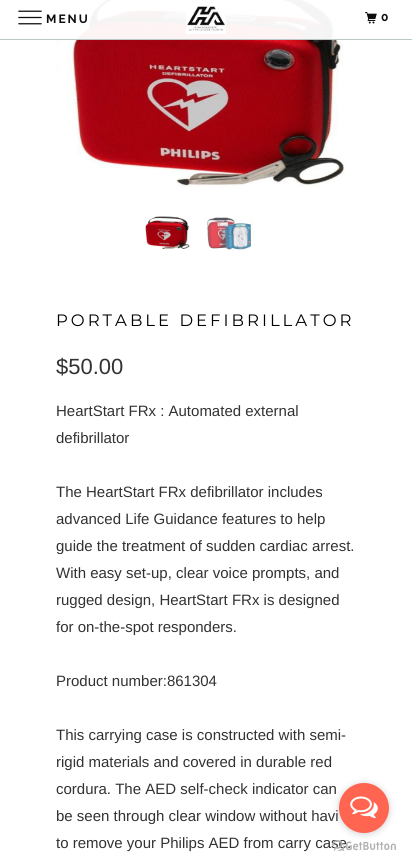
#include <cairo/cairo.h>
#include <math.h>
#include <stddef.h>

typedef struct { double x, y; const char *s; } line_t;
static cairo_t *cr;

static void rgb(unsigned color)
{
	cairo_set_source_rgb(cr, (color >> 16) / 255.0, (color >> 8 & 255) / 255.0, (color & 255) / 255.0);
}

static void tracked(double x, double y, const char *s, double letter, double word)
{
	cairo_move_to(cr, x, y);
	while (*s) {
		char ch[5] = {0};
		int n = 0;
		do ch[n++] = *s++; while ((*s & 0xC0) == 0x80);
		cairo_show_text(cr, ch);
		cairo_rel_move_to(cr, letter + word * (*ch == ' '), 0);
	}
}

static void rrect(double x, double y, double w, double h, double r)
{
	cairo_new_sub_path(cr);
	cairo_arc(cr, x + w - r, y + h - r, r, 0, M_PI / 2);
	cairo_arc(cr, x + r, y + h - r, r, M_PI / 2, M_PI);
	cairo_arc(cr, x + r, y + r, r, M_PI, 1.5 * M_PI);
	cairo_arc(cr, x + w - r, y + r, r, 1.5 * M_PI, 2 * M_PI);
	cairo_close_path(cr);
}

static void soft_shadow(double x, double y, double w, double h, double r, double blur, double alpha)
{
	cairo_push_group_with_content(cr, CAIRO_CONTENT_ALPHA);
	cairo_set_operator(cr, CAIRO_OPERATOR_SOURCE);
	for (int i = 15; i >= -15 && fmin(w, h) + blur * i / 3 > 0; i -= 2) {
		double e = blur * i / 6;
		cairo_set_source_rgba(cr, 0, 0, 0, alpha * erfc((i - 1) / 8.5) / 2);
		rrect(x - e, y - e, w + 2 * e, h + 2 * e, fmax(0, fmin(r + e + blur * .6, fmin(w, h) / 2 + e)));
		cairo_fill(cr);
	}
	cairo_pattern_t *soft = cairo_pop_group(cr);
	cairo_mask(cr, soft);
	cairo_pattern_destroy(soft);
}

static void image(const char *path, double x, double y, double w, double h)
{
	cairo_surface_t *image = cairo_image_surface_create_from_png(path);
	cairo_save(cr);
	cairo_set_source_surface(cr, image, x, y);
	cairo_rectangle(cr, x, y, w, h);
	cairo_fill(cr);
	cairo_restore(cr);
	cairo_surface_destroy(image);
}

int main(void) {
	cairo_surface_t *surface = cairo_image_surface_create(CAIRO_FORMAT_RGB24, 412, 867);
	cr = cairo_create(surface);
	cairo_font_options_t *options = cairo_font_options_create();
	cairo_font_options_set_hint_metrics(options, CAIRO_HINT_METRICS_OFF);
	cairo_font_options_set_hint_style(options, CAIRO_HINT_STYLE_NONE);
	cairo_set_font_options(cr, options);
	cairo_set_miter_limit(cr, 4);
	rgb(0xffffff);
	cairo_paint(cr);
	image("img/4.png", 57, 0, 288, 188);
	cairo_set_source_rgba(cr, 1, 1, 1, 0.95);
	cairo_rectangle(cr, 57, 0, 282, 40);
	cairo_fill(cr);
	cairo_set_source_rgba(cr, 0.722, 0.776, 0.776, 0.95);
	cairo_rectangle(cr, 0, 39, 412, 1);
	cairo_fill(cr);
	image("img/1.png", 18, 10, 24, 15);
	image("img/2.png", 186, 6, 40, 28);
	image("img/3.png", 365, 12, 12, 12);
	image("img/5.png", 145, 215, 45, 34);
	image("img/6.png", 206, 217, 48, 34);
	cairo_select_font_face(cr, "Raleway", CAIRO_FONT_SLANT_NORMAL, CAIRO_FONT_WEIGHT_BOLD);
	cairo_set_font_size(cr, 12);
	rgb(0x0d0d0d);
	tracked(46, 23, "MENU", 2, 0);
	tracked(381, 21, "0", 2, 0);
	cairo_select_font_face(cr, "Montserrat", CAIRO_FONT_SLANT_NORMAL, CAIRO_FONT_WEIGHT_NORMAL);
	cairo_set_font_size(cr, 16.5);
	rgb(0x000000);
	tracked(56, 326, "PORTABLE DEFIBRILLATOR", 3, 0);
	cairo_select_font_face(cr, "Liberation Sans", CAIRO_FONT_SLANT_NORMAL, CAIRO_FONT_WEIGHT_NORMAL);
	cairo_set_font_size(cr, 22);
	rgb(0x323232);
	cairo_move_to(cr, 56, 374);
	cairo_show_text(cr, "$50.00");
	cairo_set_font_size(cr, 15);
	{
		static const line_t items[] = {
			{56, 416, "HeartStart FRx : Automated external"},
			{56, 443, "defibrillator"},
			{56, 497, "The HeartStart FRx defibrillator includes"},
			{56, 524, "advanced Life Guidance features to help"},
			{56, 551, "guide the treatment of sudden cardiac arrest."},
			{56, 578, "With easy set-up, clear voice prompts, and"},
			{56, 605, "rugged design, HeartStart FRx is designed"},
			{56, 632, "for on-the-spot responders."},
			{56, 686, "Product number:861304"},
			{56, 740, "This carrying case is constructed with semi-"},
			{56, 767, "rigid materials and covered in durable red"},
			{56, 794, "cordura. The AED self-check indicator can"},
			{56, 821, "be seen through clear window without havi"},
			{56, 848, "to remove your Philips AED from carry case."},
		};
		for (size_t i = 0; i < sizeof items / sizeof *items; i++) {
			cairo_move_to(cr, items[i].x, items[i].y);
			cairo_show_text(cr, items[i].s);
		}
	}
	image("img/8.png", 332, 840, 64, 11);
	rgb(0x888888);
	soft_shadow(339, 784, 50, 50, 25, 3.5, 0.4);
	rgb(0xff6550);
	cairo_arc(cr, 364, 808, 25, 0, 2 * M_PI);
	cairo_fill(cr);
	image("img/7.png", 350, 796, 28, 23);
	cairo_surface_write_to_png(surface, "page.png");
	cairo_font_options_destroy(options);
	cairo_destroy(cr);
	cairo_surface_destroy(surface);
	return 0;
}
